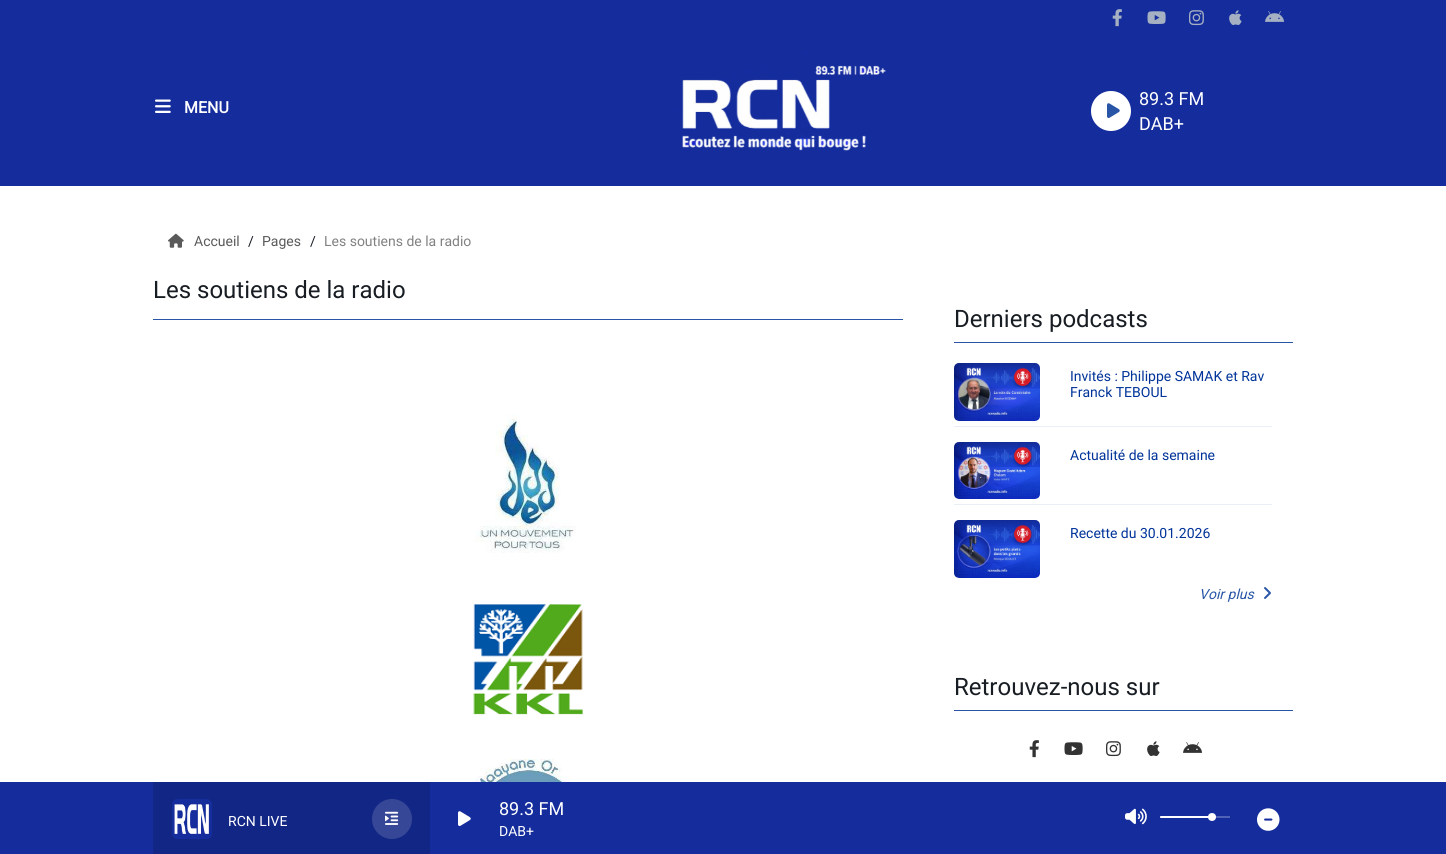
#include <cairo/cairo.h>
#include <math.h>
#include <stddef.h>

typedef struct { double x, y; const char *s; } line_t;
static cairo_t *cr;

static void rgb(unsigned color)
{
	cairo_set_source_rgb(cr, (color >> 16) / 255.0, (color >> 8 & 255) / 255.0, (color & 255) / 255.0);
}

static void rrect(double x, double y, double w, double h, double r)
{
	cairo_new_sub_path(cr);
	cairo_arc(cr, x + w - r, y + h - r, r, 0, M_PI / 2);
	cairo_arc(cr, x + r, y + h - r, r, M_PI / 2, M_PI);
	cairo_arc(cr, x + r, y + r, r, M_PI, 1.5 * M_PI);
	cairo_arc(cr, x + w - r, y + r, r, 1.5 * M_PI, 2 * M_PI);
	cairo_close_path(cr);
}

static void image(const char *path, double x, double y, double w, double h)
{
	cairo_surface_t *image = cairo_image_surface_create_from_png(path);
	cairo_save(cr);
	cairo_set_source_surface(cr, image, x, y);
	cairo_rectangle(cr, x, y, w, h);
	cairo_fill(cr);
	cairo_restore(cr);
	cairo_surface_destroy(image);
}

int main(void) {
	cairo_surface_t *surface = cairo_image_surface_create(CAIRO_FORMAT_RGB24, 1446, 854);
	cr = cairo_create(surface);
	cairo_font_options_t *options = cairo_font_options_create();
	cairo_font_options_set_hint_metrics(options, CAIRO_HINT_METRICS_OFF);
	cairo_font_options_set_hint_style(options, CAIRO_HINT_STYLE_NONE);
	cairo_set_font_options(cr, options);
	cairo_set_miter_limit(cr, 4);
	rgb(0xffffff);
	cairo_paint(cr);
	rgb(0x152d9c);
	cairo_rectangle(cr, 0, 0, 1446, 186);
	cairo_fill(cr);
	image("img/1.png", 1112, 9, 10, 18);
	image("img/2.png", 1147, 11, 19, 13);
	image("img/3.png", 1189, 10, 15, 16);
	image("img/4.png", 1229, 10, 13, 15);
	image("img/5.png", 1265, 11, 20, 11);
	image("img/6.png", 155, 99, 16, 14);
	image("img/7.png", 676, 48, 210, 124);
	rgb(0xffffff);
	cairo_arc(cr, 1111, 111, 20, 0, 2 * M_PI);
	cairo_fill(cr);
	image("img/8.png", 1107, 103, 13, 15);
	rgb(0x152d9c);
	cairo_rectangle(cr, 0, 782, 1446, 72);
	cairo_fill(cr);
	rgb(0x122685);
	cairo_rectangle(cr, 153, 782, 277, 72);
	cairo_fill(cr);
	image("img/9.png", 172, 799, 40, 40);
	rgb(0x364797);
	cairo_arc(cr, 392, 819, 20, 0, 2 * M_PI);
	cairo_fill(cr);
	image("img/10.png", 385, 811, 14, 14);
	image("img/11.png", 458, 811, 13, 15);
	image("img/12.png", 1125, 808, 22, 17);
	rgb(0x5062b5);
	cairo_rectangle(cr, 1160, 816, 70, 2);
	cairo_fill(cr);
	rgb(0xffffff);
	rrect(1160, 816, 53, 2, 1);
	cairo_fill(cr);
	cairo_arc(cr, 1212, 817, 4, 0, 2 * M_PI);
	cairo_fill(cr);
	image("img/13.png", 1257, 808, 23, 23);
	image("img/14.png", 168, 233, 16, 15);
	rgb(0x2855a6);
	cairo_rectangle(cr, 153, 319, 750, 1);
	cairo_fill(cr);
	image("img/15.png", 475, 414, 101, 139);
	image("img/16.png", 473, 604, 111, 111);
	image("img/17.png", 468, 759, 120, 23);
	cairo_rectangle(cr, 954, 342, 339, 1);
	cairo_fill(cr);
	image("img/18.png", 954, 363, 86, 58);
	rgb(0xeaeef6);
	cairo_rectangle(cr, 954, 426, 318, 1);
	cairo_fill(cr);
	image("img/19.png", 954, 442, 86, 57);
	cairo_rectangle(cr, 954, 504, 318, 1);
	cairo_fill(cr);
	image("img/20.png", 954, 520, 86, 58);
	image("img/21.png", 1264, 587, 7, 12);
	rgb(0x2855a6);
	cairo_rectangle(cr, 954, 710, 339, 1);
	cairo_fill(cr);
	image("img/22.png", 1029, 740, 10, 18);
	image("img/23.png", 1064, 742, 19, 13);
	image("img/24.png", 1106, 741, 15, 16);
	image("img/25.png", 1147, 741, 13, 15);
	image("img/26.png", 1183, 742, 20, 11);
	cairo_select_font_face(cr, "Roboto", CAIRO_FONT_SLANT_NORMAL, CAIRO_FONT_WEIGHT_BOLD);
	cairo_set_font_size(cr, 16);
	rgb(0xffffff);
	cairo_move_to(cr, 184, 113);
	cairo_show_text(cr, "MENU");
	cairo_select_font_face(cr, "Roboto", CAIRO_FONT_SLANT_NORMAL, CAIRO_FONT_WEIGHT_NORMAL);
	cairo_set_font_size(cr, 18);
	cairo_move_to(cr, 1139, 105);
	cairo_show_text(cr, "89.3 FM");
	cairo_move_to(cr, 1139, 130);
	cairo_show_text(cr, "DAB+");
	cairo_set_font_size(cr, 14);
	cairo_move_to(cr, 228, 826);
	cairo_show_text(cr, "RCN LIVE");
	cairo_set_font_size(cr, 18);
	cairo_move_to(cr, 499, 815);
	cairo_show_text(cr, "89.3 FM");
	cairo_set_font_size(cr, 14);
	cairo_move_to(cr, 499, 836);
	cairo_show_text(cr, "DAB+");
	rgb(0x5a5a5a);
	cairo_move_to(cr, 194, 246);
	cairo_show_text(cr, "Accueil");
	rgb(0x181d23);
	cairo_move_to(cr, 248, 246);
	cairo_show_text(cr, "/");
	rgb(0x5a5a5a);
	cairo_move_to(cr, 262, 246);
	cairo_show_text(cr, "Pages");
	rgb(0x181d23);
	cairo_move_to(cr, 310, 246);
	cairo_show_text(cr, "/");
	rgb(0x818181);
	cairo_move_to(cr, 324, 246);
	cairo_show_text(cr, "Les soutiens de la radio");
	cairo_set_font_size(cr, 24);
	rgb(0x181d23);
	cairo_move_to(cr, 153, 298);
	cairo_show_text(cr, "Les soutiens de la radio");
	cairo_move_to(cr, 954, 327);
	cairo_show_text(cr, "Derniers podcasts");
	cairo_set_font_size(cr, 14);
	rgb(0x003399);
	{
		static const line_t items[] = {
			{1070, 381, "Invités : Philippe SAMAK et Rav"},
			{1070, 397, "Franck TEBOUL"},
			{1070, 460, "Actualité de la semaine"},
			{1070, 538, "Recette du 30.01.2026"},
		};
		for (size_t i = 0; i < sizeof items / sizeof *items; i++) {
			cairo_move_to(cr, items[i].x, items[i].y);
			cairo_show_text(cr, items[i].s);
		}
	}
	cairo_select_font_face(cr, "Roboto", CAIRO_FONT_SLANT_ITALIC, CAIRO_FONT_WEIGHT_NORMAL);
	rgb(0x2855a6);
	cairo_move_to(cr, 1199, 599);
	cairo_show_text(cr, "Voir plus");
	cairo_select_font_face(cr, "Roboto", CAIRO_FONT_SLANT_NORMAL, CAIRO_FONT_WEIGHT_NORMAL);
	cairo_set_font_size(cr, 24);
	rgb(0x181d23);
	cairo_move_to(cr, 954, 695);
	cairo_show_text(cr, "Retrouvez-nous sur");
	cairo_surface_write_to_png(surface, "page.png");
	cairo_font_options_destroy(options);
	cairo_destroy(cr);
	cairo_surface_destroy(surface);
	return 0;
}
